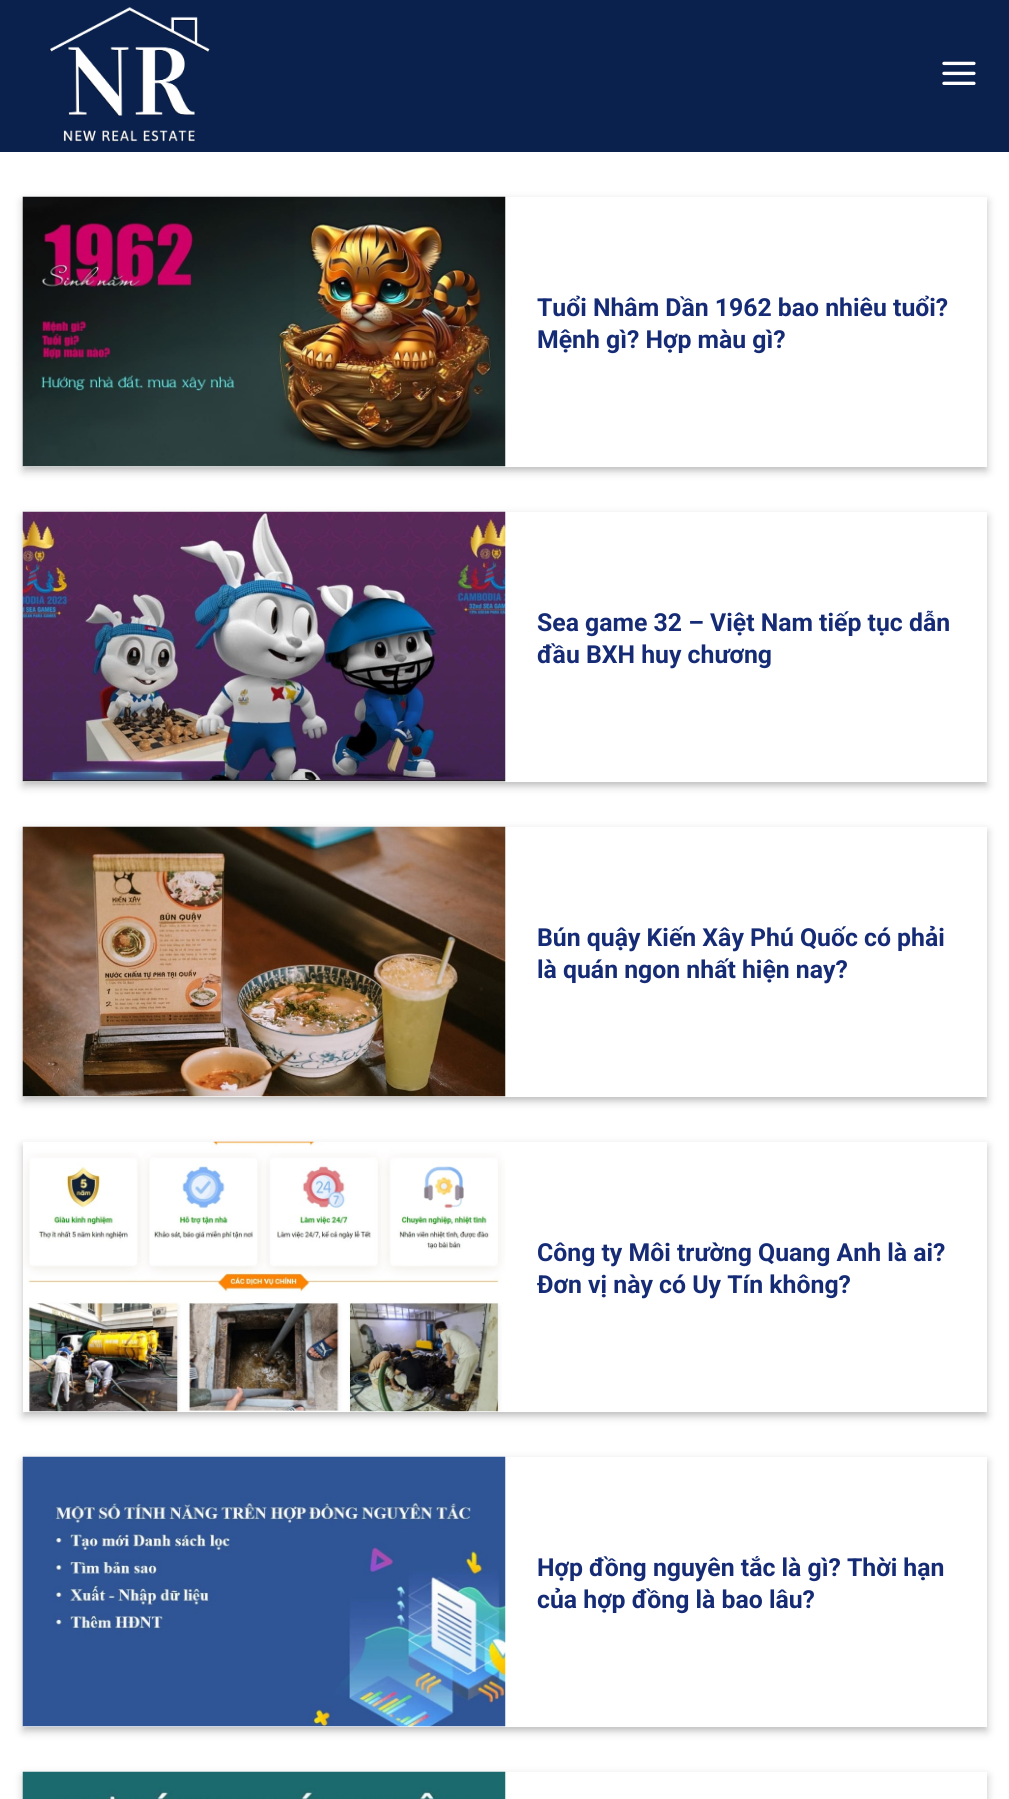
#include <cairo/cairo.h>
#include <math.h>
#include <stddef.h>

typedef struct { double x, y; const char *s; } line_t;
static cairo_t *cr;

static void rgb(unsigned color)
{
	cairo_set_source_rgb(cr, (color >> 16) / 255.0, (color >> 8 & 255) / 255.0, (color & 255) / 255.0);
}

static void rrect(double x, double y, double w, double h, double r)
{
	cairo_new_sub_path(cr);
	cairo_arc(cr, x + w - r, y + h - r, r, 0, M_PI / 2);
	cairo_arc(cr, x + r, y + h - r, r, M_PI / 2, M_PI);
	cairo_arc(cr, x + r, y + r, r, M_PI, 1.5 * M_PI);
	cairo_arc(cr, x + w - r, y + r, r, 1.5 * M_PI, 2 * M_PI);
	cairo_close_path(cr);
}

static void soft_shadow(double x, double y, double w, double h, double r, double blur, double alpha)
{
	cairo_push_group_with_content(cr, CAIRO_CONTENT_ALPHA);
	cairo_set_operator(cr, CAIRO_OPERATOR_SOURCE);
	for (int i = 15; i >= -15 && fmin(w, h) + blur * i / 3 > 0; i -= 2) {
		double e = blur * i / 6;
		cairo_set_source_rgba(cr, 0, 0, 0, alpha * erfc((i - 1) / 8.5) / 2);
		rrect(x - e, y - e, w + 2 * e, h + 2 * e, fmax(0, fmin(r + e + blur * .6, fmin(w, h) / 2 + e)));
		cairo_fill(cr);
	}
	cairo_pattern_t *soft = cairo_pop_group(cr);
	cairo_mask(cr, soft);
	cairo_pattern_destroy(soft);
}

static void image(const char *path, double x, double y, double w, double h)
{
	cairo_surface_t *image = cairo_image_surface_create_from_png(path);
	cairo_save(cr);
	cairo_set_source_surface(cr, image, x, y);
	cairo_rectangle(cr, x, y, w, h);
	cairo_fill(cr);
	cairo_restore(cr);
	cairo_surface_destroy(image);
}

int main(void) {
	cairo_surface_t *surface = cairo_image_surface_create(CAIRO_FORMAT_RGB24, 1009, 1799);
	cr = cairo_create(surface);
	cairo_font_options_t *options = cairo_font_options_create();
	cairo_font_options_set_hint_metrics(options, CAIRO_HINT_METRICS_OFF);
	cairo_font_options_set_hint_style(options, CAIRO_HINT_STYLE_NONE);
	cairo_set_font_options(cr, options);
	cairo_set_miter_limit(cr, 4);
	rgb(0xffffff);
	cairo_paint(cr);
	rgb(0x0a214e);
	cairo_rectangle(cr, 0, 0, 1009, 152);
	cairo_fill(cr);
	image("img/1.png", 49, 7, 161, 135);
	image("img/2.png", 942, 61, 34, 24);
	rgb(0x000000);
	soft_shadow(23, 201, 964, 270, 0, 4.5, 0.23);
	soft_shadow(29, 207, 952, 258, 0, 4.5, 0.16);
	rgb(0xffffff);
	cairo_rectangle(cr, 23, 197, 964, 270);
	cairo_fill(cr);
	image("img/3.png", 22, 196, 484, 271);
	rgb(0x000000);
	soft_shadow(23, 516, 964, 270, 0, 4.5, 0.23);
	soft_shadow(29, 522, 952, 258, 0, 4.5, 0.16);
	rgb(0xffffff);
	cairo_rectangle(cr, 23, 512, 964, 270);
	cairo_fill(cr);
	image("img/4.png", 22, 511, 484, 271);
	rgb(0x000000);
	soft_shadow(23, 831, 964, 270, 0, 4.5, 0.23);
	soft_shadow(29, 837, 952, 258, 0, 4.5, 0.16);
	rgb(0xffffff);
	cairo_rectangle(cr, 23, 827, 964, 270);
	cairo_fill(cr);
	image("img/5.png", 22, 826, 484, 271);
	rgb(0x000000);
	soft_shadow(23, 1146, 964, 270, 0, 4.5, 0.23);
	soft_shadow(29, 1152, 952, 258, 0, 4.5, 0.16);
	rgb(0xffffff);
	cairo_rectangle(cr, 23, 1142, 964, 270);
	cairo_fill(cr);
	image("img/6.png", 23, 1141, 482, 271);
	rgb(0x000000);
	soft_shadow(23, 1461, 964, 270, 0, 4.5, 0.23);
	soft_shadow(29, 1467, 952, 258, 0, 4.5, 0.16);
	rgb(0xffffff);
	cairo_rectangle(cr, 23, 1457, 964, 270);
	cairo_fill(cr);
	image("img/7.png", 22, 1456, 484, 271);
	cairo_save(cr);
	cairo_set_fill_rule(cr, CAIRO_FILL_RULE_EVEN_ODD);
	cairo_new_path(cr);
	cairo_move_to(cr, 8, 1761);
	cairo_line_to(cr, 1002, 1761);
	cairo_line_to(cr, 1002, 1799);
	cairo_line_to(cr, 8, 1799);
	cairo_close_path(cr);
	cairo_move_to(cr, 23, 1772);
	cairo_line_to(cr, 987, 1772);
	cairo_line_to(cr, 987, 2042);
	cairo_line_to(cr, 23, 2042);
	cairo_close_path(cr);
	cairo_clip(cr);
	rgb(0x000000);
	soft_shadow(23, 1776, 964, 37, 0, 4.5, 0.23);
	cairo_restore(cr);
	image("img/8.png", 22, 1771, 484, 28);
	cairo_select_font_face(cr, "Roboto", CAIRO_FONT_SLANT_NORMAL, CAIRO_FONT_WEIGHT_BOLD);
	cairo_set_font_size(cr, 24.8);
	rgb(0x152b75);
	{
		static const line_t items[] = {
			{537, 316, "Tuổi Nhâm Dần 1962 bao nhiêu tuổi?"},
			{537, 348, "Mệnh gì? Hợp màu gì?"},
			{537, 631, "Sea game 32 – Việt Nam tiếp tục dẫn"},
			{537, 663, "đầu BXH huy chương"},
			{537, 946, "Bún quậy Kiến Xây Phú Quốc có phải"},
			{537, 978, "là quán ngon nhất hiện nay?"},
			{537, 1261, "Công ty Môi trường Quang Anh là ai?"},
			{537, 1293, "Đơn vị này có Uy Tín không?"},
			{537, 1576, "Hợp đồng nguyên tắc là gì? Thời hạn"},
			{537, 1608, "của hợp đồng là bao lâu?"},
		};
		for (size_t i = 0; i < sizeof items / sizeof *items; i++) {
			cairo_move_to(cr, items[i].x, items[i].y);
			cairo_show_text(cr, items[i].s);
		}
	}
	cairo_surface_write_to_png(surface, "page.png");
	cairo_font_options_destroy(options);
	cairo_destroy(cr);
	cairo_surface_destroy(surface);
	return 0;
}
